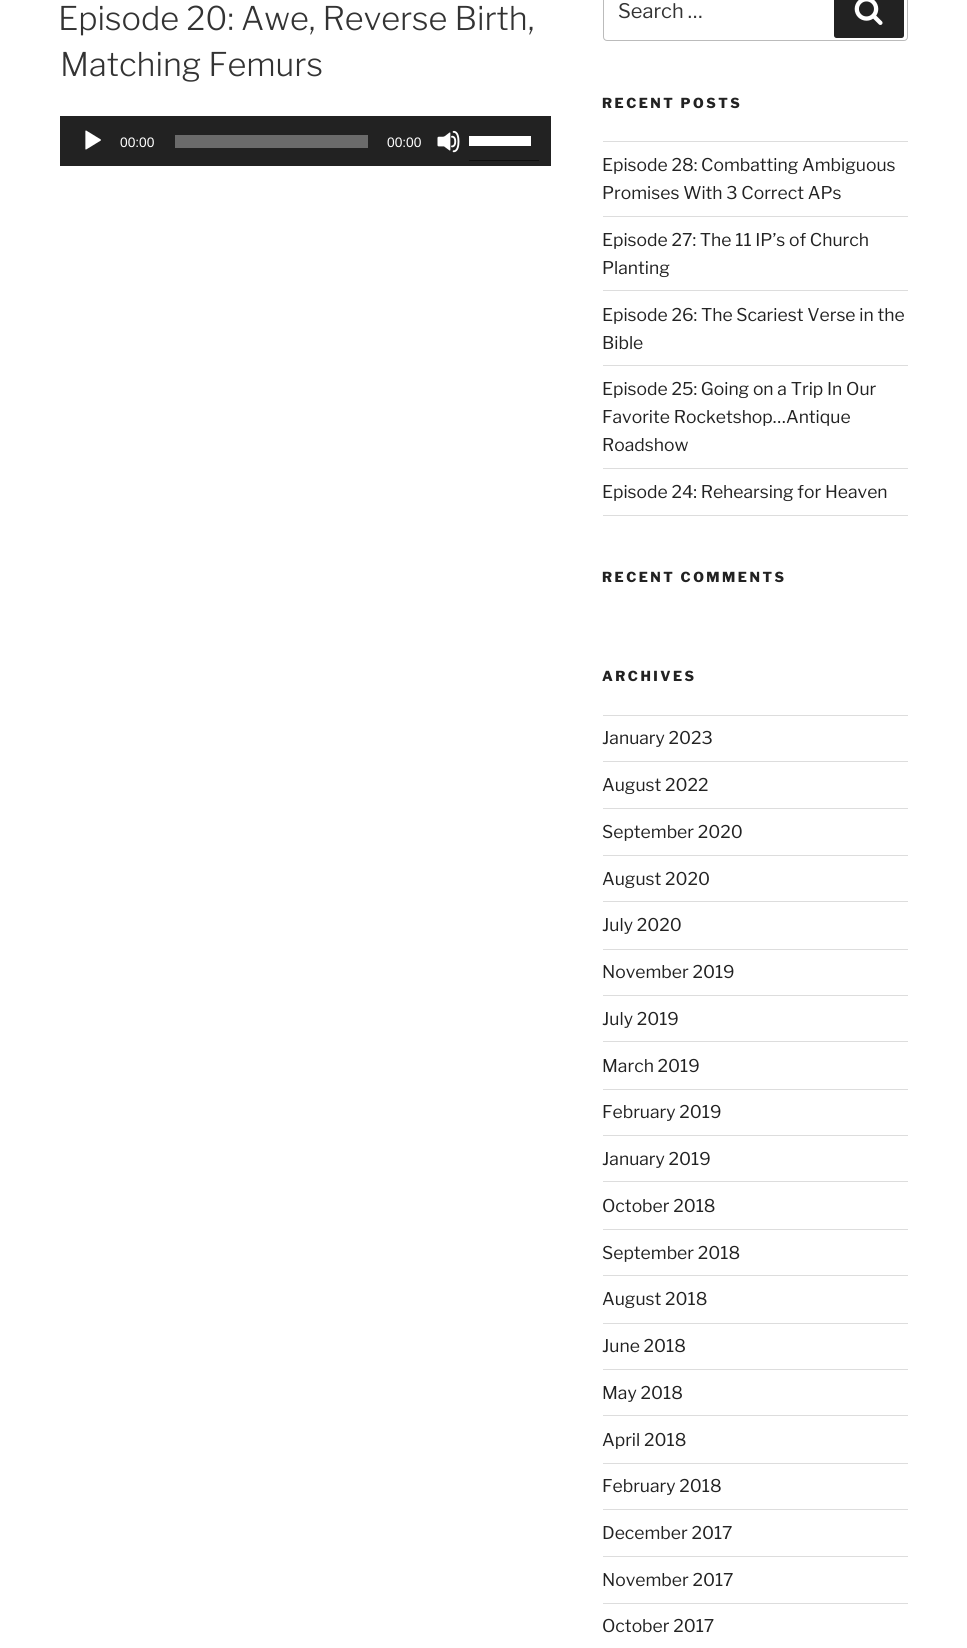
#include <cairo/cairo.h>
#include <math.h>
#include <stddef.h>

typedef struct { double x, y; const char *s; } line_t;
typedef struct { double x, y, w, h; unsigned color; } box_t;
static cairo_t *cr;

static void rgb(unsigned color)
{
	cairo_set_source_rgb(cr, (color >> 16) / 255.0, (color >> 8 & 255) / 255.0, (color & 255) / 255.0);
}

static void tracked(double x, double y, const char *s, double letter, double word)
{
	cairo_move_to(cr, x, y);
	while (*s) {
		char ch[5] = {0};
		int n = 0;
		do ch[n++] = *s++; while ((*s & 0xC0) == 0x80);
		cairo_show_text(cr, ch);
		cairo_rel_move_to(cr, letter + word * (*ch == ' '), 0);
	}
}

static void rrect(double x, double y, double w, double h, double r)
{
	cairo_new_sub_path(cr);
	cairo_arc(cr, x + w - r, y + h - r, r, 0, M_PI / 2);
	cairo_arc(cr, x + r, y + h - r, r, M_PI / 2, M_PI);
	cairo_arc(cr, x + r, y + r, r, M_PI, 1.5 * M_PI);
	cairo_arc(cr, x + w - r, y + r, r, 1.5 * M_PI, 2 * M_PI);
	cairo_close_path(cr);
}

static void image(const char *path, double x, double y, double w, double h)
{
	cairo_surface_t *image = cairo_image_surface_create_from_png(path);
	cairo_save(cr);
	cairo_set_source_surface(cr, image, x, y);
	cairo_rectangle(cr, x, y, w, h);
	cairo_fill(cr);
	cairo_restore(cr);
	cairo_surface_destroy(image);
}

int main(void) {
	cairo_surface_t *surface = cairo_image_surface_create(CAIRO_FORMAT_RGB24, 967, 1648);
	cr = cairo_create(surface);
	cairo_font_options_t *options = cairo_font_options_create();
	cairo_font_options_set_hint_metrics(options, CAIRO_HINT_METRICS_OFF);
	cairo_font_options_set_hint_style(options, CAIRO_HINT_STYLE_NONE);
	cairo_set_font_options(cr, options);
	cairo_set_miter_limit(cr, 4);
	rgb(0xffffff);
	cairo_paint(cr);
	rgb(0x222222);
	cairo_rectangle(cr, 60, 116, 491, 50);
	cairo_fill(cr);
	image("img/1.png", 85, 130, 16, 20);
	rgb(0x6b6b6b);
	cairo_rectangle(cr, 175, 135, 193, 13);
	cairo_fill(cr);
	image("img/2.png", 437, 130, 23, 23);
	rgb(0x0f0f0f);
	cairo_rectangle(cr, 469, 160, 70, 1);
	cairo_fill(cr);
	rgb(0xffffff);
	cairo_rectangle(cr, 469, 136, 62, 10);
	cairo_fill(cr);
	rrect(603.5, -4.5, 304, 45, 3.5);
	rgb(0xbbbbbb);
	cairo_set_line_width(cr, 1);
	cairo_stroke(cr);
	rgb(0x222222);
	rrect(834, -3, 70, 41, 2.5);
	cairo_fill(cr);
	image("img/3.png", 854, 0, 29, 25);
	{
		static const box_t items[] = {
			{603, 141, 305, 1, 0xdddddd},
			{603, 216, 305, 1, 0xdddddd},
			{603, 290, 305, 1, 0xdddddd},
			{603, 365, 305, 1, 0xdddddd},
			{603, 468, 305, 1, 0xdddddd},
			{603, 515, 305, 1, 0xdddddd},
			{603, 715, 305, 1, 0xdddddd},
			{603, 761, 305, 1, 0xdddddd},
			{603, 808, 305, 1, 0xdddddd},
			{603, 855, 305, 1, 0xdddddd},
			{603, 901, 305, 1, 0xdddddd},
			{603, 949, 305, 1, 0xdddddd},
			{603, 995, 305, 1, 0xdddddd},
			{603, 1041, 305, 1, 0xdddddd},
			{603, 1089, 305, 1, 0xdddddd},
			{603, 1135, 305, 1, 0xdddddd},
			{603, 1181, 305, 1, 0xdddddd},
			{603, 1229, 305, 1, 0xdddddd},
			{603, 1275, 305, 1, 0xdddddd},
			{603, 1323, 305, 1, 0xdddddd},
			{603, 1369, 305, 1, 0xdddddd},
			{603, 1415, 305, 1, 0xdddddd},
			{603, 1463, 305, 1, 0xdddddd},
			{603, 1509, 305, 1, 0xdddddd},
			{603, 1556, 305, 1, 0xdddddd},
			{603, 1603, 305, 1, 0xdddddd},
		};
		for (size_t i = 0; i < sizeof items / sizeof *items; i++) {
			rgb(items[i].color);
			cairo_rectangle(cr, items[i].x, items[i].y, items[i].w, items[i].h);
			cairo_fill(cr);
		}
	}
	cairo_select_font_face(cr, "Libre Franklin Light", CAIRO_FONT_SLANT_NORMAL, CAIRO_FONT_WEIGHT_NORMAL);
	cairo_set_font_size(cr, 32.5);
	rgb(0x333333);
	cairo_move_to(cr, 58, 30);
	cairo_show_text(cr, "Episode 20: Awe, Reverse Birth,");
	cairo_move_to(cr, 60, 76);
	cairo_show_text(cr, "Matching Femurs");
	cairo_select_font_face(cr, "Liberation Sans", CAIRO_FONT_SLANT_NORMAL, CAIRO_FONT_WEIGHT_NORMAL);
	cairo_set_font_size(cr, 13.75);
	rgb(0xffffff);
	cairo_move_to(cr, 120, 147);
	cairo_show_text(cr, "00:00");
	cairo_move_to(cr, 387, 147);
	cairo_show_text(cr, "00:00");
	cairo_select_font_face(cr, "Libre Franklin", CAIRO_FONT_SLANT_NORMAL, CAIRO_FONT_WEIGHT_NORMAL);
	cairo_set_font_size(cr, 20);
	rgb(0x333333);
	cairo_move_to(cr, 618, 18);
	cairo_show_text(cr, "Search …");
	cairo_select_font_face(cr, "Libre Franklin ExtraBold", CAIRO_FONT_SLANT_NORMAL, CAIRO_FONT_WEIGHT_NORMAL);
	cairo_set_font_size(cr, 13.75);
	rgb(0x222222);
	tracked(602, 108, "RECENT POSTS", 2.5, 0);
	cairo_select_font_face(cr, "Libre Franklin", CAIRO_FONT_SLANT_NORMAL, CAIRO_FONT_WEIGHT_NORMAL);
	cairo_set_font_size(cr, 17.5);
	{
		static const line_t items[] = {
			{602, 171, "Episode 28: Combatting Ambiguous"},
			{602, 199, "Promises With 3 Correct APs"},
			{602, 246, "Episode 27: The 11 IP’s of Church"},
			{602, 274, "Planting"},
			{602, 321, "Episode 26: The Scariest Verse in the"},
			{602, 349, "Bible"},
			{602, 395, "Episode 25: Going on a Trip In Our"},
			{602, 423, "Favorite Rocketshop…Antique"},
			{602, 451, "Roadshow"},
			{602, 498, "Episode 24: Rehearsing for Heaven"},
		};
		for (size_t i = 0; i < sizeof items / sizeof *items; i++) {
			cairo_move_to(cr, items[i].x, items[i].y);
			cairo_show_text(cr, items[i].s);
		}
	}
	cairo_select_font_face(cr, "Libre Franklin ExtraBold", CAIRO_FONT_SLANT_NORMAL, CAIRO_FONT_WEIGHT_NORMAL);
	cairo_set_font_size(cr, 13.75);
	tracked(602, 582, "RECENT COMMENTS", 2.5, 0);
	tracked(602, 681, "ARCHIVES", 2.5, 0);
	cairo_select_font_face(cr, "Libre Franklin", CAIRO_FONT_SLANT_NORMAL, CAIRO_FONT_WEIGHT_NORMAL);
	cairo_set_font_size(cr, 17.5);
	{
		static const line_t items[] = {
			{602, 744, "January 2023"},
			{602, 791, "August 2022"},
			{602, 838, "September 2020"},
			{602, 885, "August 2020"},
			{602, 931, "July 2020"},
			{602, 978, "November 2019"},
			{602, 1025, "July 2019"},
			{602, 1072, "March 2019"},
			{602, 1118, "February 2019"},
			{602, 1165, "January 2019"},
			{602, 1212, "October 2018"},
			{602, 1259, "September 2018"},
			{602, 1305, "August 2018"},
			{602, 1352, "June 2018"},
			{602, 1399, "May 2018"},
			{602, 1446, "April 2018"},
			{602, 1492, "February 2018"},
			{602, 1539, "December 2017"},
			{602, 1586, "November 2017"},
			{602, 1632, "October 2017"},
		};
		for (size_t i = 0; i < sizeof items / sizeof *items; i++) {
			cairo_move_to(cr, items[i].x, items[i].y);
			cairo_show_text(cr, items[i].s);
		}
	}
	cairo_surface_write_to_png(surface, "page.png");
	cairo_font_options_destroy(options);
	cairo_destroy(cr);
	cairo_surface_destroy(surface);
	return 0;
}
